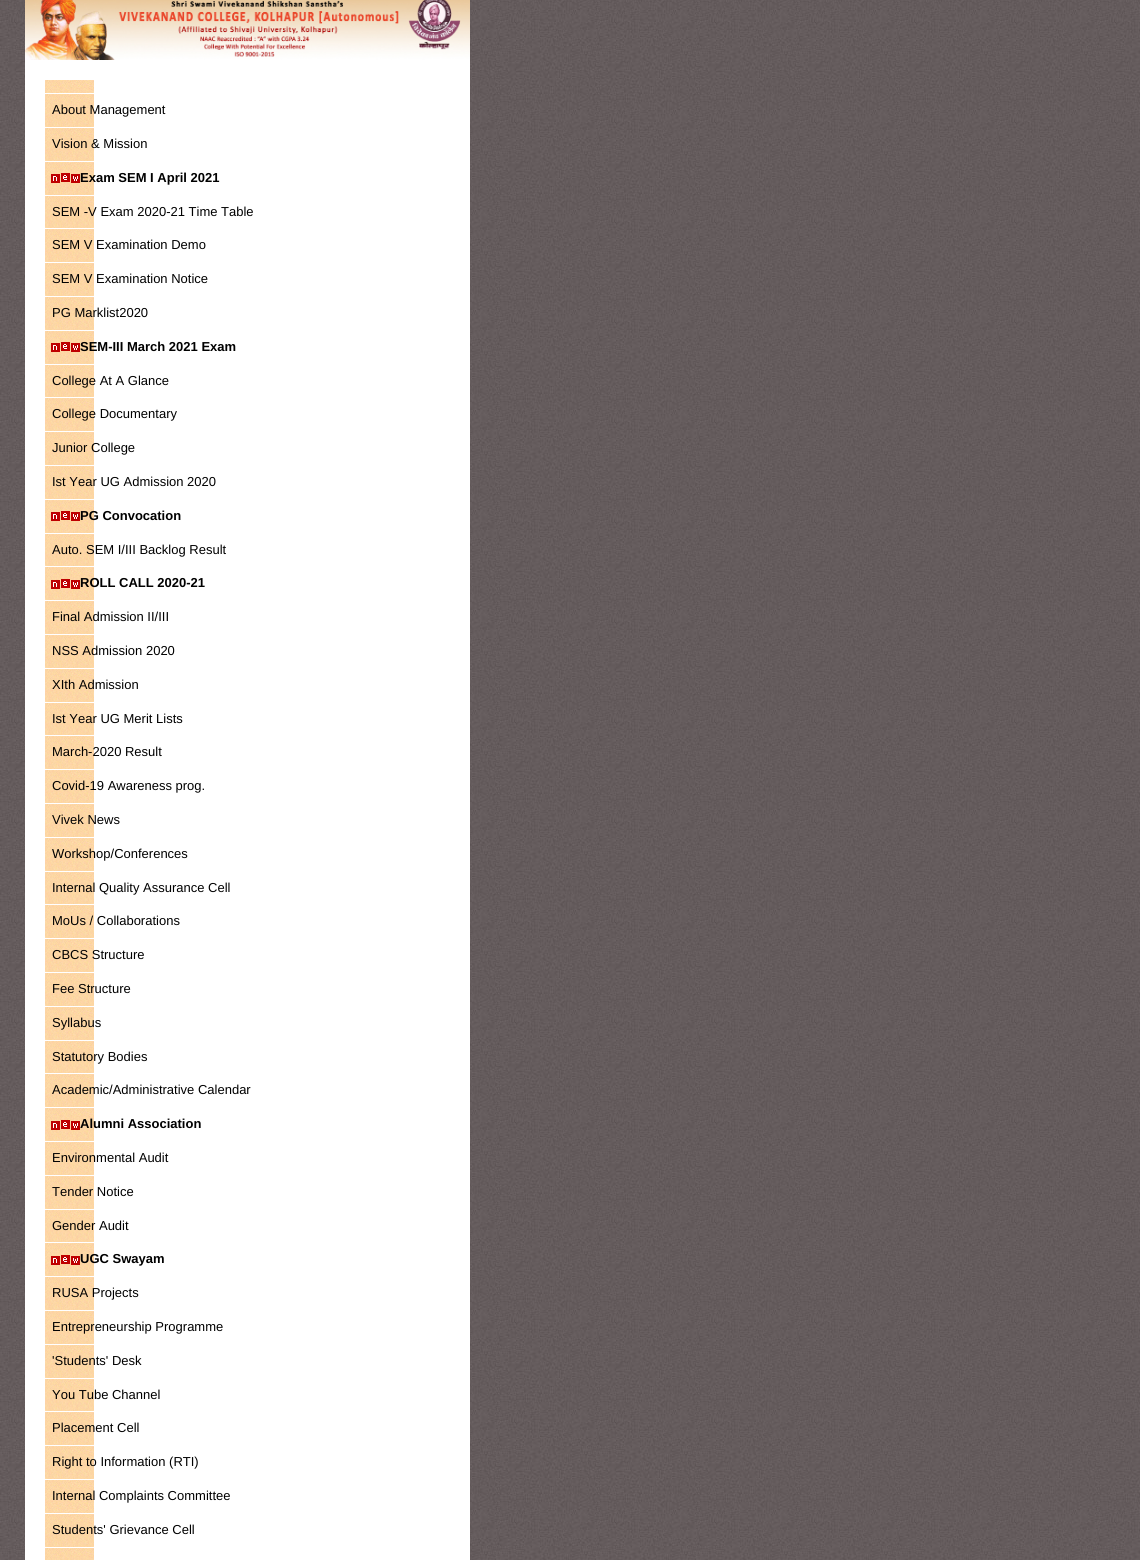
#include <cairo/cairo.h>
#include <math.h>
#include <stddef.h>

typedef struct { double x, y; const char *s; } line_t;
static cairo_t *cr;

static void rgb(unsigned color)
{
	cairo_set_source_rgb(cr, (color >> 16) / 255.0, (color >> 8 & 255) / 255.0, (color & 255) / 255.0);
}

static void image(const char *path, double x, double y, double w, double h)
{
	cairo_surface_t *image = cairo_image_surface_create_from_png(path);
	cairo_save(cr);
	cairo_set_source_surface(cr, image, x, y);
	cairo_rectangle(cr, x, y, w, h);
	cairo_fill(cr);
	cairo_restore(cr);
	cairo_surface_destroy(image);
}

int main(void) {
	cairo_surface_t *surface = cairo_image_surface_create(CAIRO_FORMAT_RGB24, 1140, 1560);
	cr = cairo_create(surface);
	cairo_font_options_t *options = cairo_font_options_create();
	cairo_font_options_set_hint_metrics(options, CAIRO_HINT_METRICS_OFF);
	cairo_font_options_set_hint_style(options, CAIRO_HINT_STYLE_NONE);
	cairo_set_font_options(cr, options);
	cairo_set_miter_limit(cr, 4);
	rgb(0xffffff);
	cairo_paint(cr);
	image("img/1.png", 0, 0, 1140, 1560);
	rgb(0xffffff);
	cairo_rectangle(cr, 25, 60, 445, 1500);
	cairo_fill(cr);
	image("img/2.png", 25, 0, 445, 60);
	image("img/3.png", 45, 80, 49, 1433);
	cairo_rectangle(cr, 45, 93, 49, 1);
	cairo_fill(cr);
	image("img/4.png", 45, 94, 49, 33);
	cairo_rectangle(cr, 45, 127, 49, 1);
	cairo_fill(cr);
	image("img/4.png", 45, 128, 49, 33);
	cairo_rectangle(cr, 45, 161, 49, 1);
	cairo_fill(cr);
	image("img/4.png", 45, 162, 49, 33);
	cairo_rectangle(cr, 45, 195, 49, 1);
	cairo_fill(cr);
	image("img/5.png", 51, 173, 29, 10);
	image("img/6.png", 45, 196, 49, 32);
	cairo_rectangle(cr, 45, 228, 49, 1);
	cairo_fill(cr);
	image("img/4.png", 45, 229, 49, 33);
	cairo_rectangle(cr, 45, 262, 49, 1);
	cairo_fill(cr);
	image("img/4.png", 45, 263, 49, 33);
	cairo_rectangle(cr, 45, 296, 49, 1);
	cairo_fill(cr);
	image("img/4.png", 45, 297, 49, 33);
	cairo_rectangle(cr, 45, 330, 49, 1);
	cairo_fill(cr);
	image("img/4.png", 45, 331, 49, 33);
	cairo_rectangle(cr, 45, 364, 49, 1);
	cairo_fill(cr);
	image("img/5.png", 51, 342, 29, 10);
	image("img/6.png", 45, 365, 49, 32);
	cairo_rectangle(cr, 45, 397, 49, 1);
	cairo_fill(cr);
	image("img/4.png", 45, 398, 49, 33);
	cairo_rectangle(cr, 45, 431, 49, 1);
	cairo_fill(cr);
	image("img/4.png", 45, 432, 49, 33);
	cairo_rectangle(cr, 45, 465, 49, 1);
	cairo_fill(cr);
	image("img/4.png", 45, 466, 49, 33);
	cairo_rectangle(cr, 45, 499, 49, 1);
	cairo_fill(cr);
	image("img/4.png", 45, 500, 49, 33);
	cairo_rectangle(cr, 45, 533, 49, 1);
	cairo_fill(cr);
	image("img/5.png", 51, 511, 29, 10);
	image("img/6.png", 45, 534, 49, 32);
	cairo_rectangle(cr, 45, 566, 49, 1);
	cairo_fill(cr);
	image("img/4.png", 45, 567, 49, 33);
	cairo_rectangle(cr, 45, 600, 49, 1);
	cairo_fill(cr);
	image("img/7.png", 51, 579, 29, 10);
	image("img/4.png", 45, 601, 49, 33);
	cairo_rectangle(cr, 45, 634, 49, 1);
	cairo_fill(cr);
	image("img/4.png", 45, 635, 49, 33);
	cairo_rectangle(cr, 45, 668, 49, 1);
	cairo_fill(cr);
	image("img/4.png", 45, 669, 49, 33);
	cairo_rectangle(cr, 45, 702, 49, 1);
	cairo_fill(cr);
	image("img/6.png", 45, 703, 49, 32);
	cairo_rectangle(cr, 45, 735, 49, 1);
	cairo_fill(cr);
	image("img/4.png", 45, 736, 49, 33);
	cairo_rectangle(cr, 45, 769, 49, 1);
	cairo_fill(cr);
	image("img/4.png", 45, 770, 49, 33);
	cairo_rectangle(cr, 45, 803, 49, 1);
	cairo_fill(cr);
	image("img/4.png", 45, 804, 49, 33);
	cairo_rectangle(cr, 45, 837, 49, 1);
	cairo_fill(cr);
	image("img/4.png", 45, 838, 49, 33);
	cairo_rectangle(cr, 45, 871, 49, 1);
	cairo_fill(cr);
	image("img/6.png", 45, 872, 49, 32);
	cairo_rectangle(cr, 45, 904, 49, 1);
	cairo_fill(cr);
	image("img/4.png", 45, 905, 49, 33);
	cairo_rectangle(cr, 45, 938, 49, 1);
	cairo_fill(cr);
	image("img/4.png", 45, 939, 49, 33);
	cairo_rectangle(cr, 45, 972, 49, 1);
	cairo_fill(cr);
	image("img/4.png", 45, 973, 49, 33);
	cairo_rectangle(cr, 45, 1006, 49, 1);
	cairo_fill(cr);
	image("img/4.png", 45, 1007, 49, 33);
	cairo_rectangle(cr, 45, 1040, 49, 1);
	cairo_fill(cr);
	image("img/6.png", 45, 1041, 49, 32);
	cairo_rectangle(cr, 45, 1073, 49, 1);
	cairo_fill(cr);
	image("img/4.png", 45, 1074, 49, 33);
	cairo_rectangle(cr, 45, 1107, 49, 1);
	cairo_fill(cr);
	image("img/4.png", 45, 1108, 49, 33);
	cairo_rectangle(cr, 45, 1141, 49, 1);
	cairo_fill(cr);
	image("img/7.png", 51, 1120, 29, 10);
	image("img/4.png", 45, 1142, 49, 33);
	cairo_rectangle(cr, 45, 1175, 49, 1);
	cairo_fill(cr);
	image("img/4.png", 45, 1176, 49, 33);
	cairo_rectangle(cr, 45, 1209, 49, 1);
	cairo_fill(cr);
	image("img/6.png", 45, 1210, 49, 32);
	cairo_rectangle(cr, 45, 1242, 49, 1);
	cairo_fill(cr);
	image("img/4.png", 45, 1243, 49, 33);
	cairo_rectangle(cr, 45, 1276, 49, 1);
	cairo_fill(cr);
	image("img/7.png", 51, 1255, 29, 10);
	image("img/4.png", 45, 1277, 49, 33);
	cairo_rectangle(cr, 45, 1310, 49, 1);
	cairo_fill(cr);
	image("img/4.png", 45, 1311, 49, 33);
	cairo_rectangle(cr, 45, 1344, 49, 1);
	cairo_fill(cr);
	image("img/4.png", 45, 1345, 49, 33);
	cairo_rectangle(cr, 45, 1378, 49, 1);
	cairo_fill(cr);
	image("img/6.png", 45, 1379, 49, 32);
	cairo_rectangle(cr, 45, 1411, 49, 1);
	cairo_fill(cr);
	image("img/4.png", 45, 1412, 49, 33);
	cairo_rectangle(cr, 45, 1445, 49, 1);
	cairo_fill(cr);
	image("img/4.png", 45, 1446, 49, 33);
	cairo_rectangle(cr, 45, 1479, 49, 1);
	cairo_fill(cr);
	image("img/4.png", 45, 1514, 49, 33);
	image("img/8.png", 45, 1548, 49, 12);
	cairo_select_font_face(cr, "Liberation Sans", CAIRO_FONT_SLANT_NORMAL, CAIRO_FONT_WEIGHT_NORMAL);
	cairo_set_font_size(cr, 13);
	rgb(0x000000);
	cairo_move_to(cr, 52, 114);
	cairo_show_text(cr, "About Management");
	cairo_move_to(cr, 52, 148);
	cairo_show_text(cr, "Vision & Mission");
	cairo_select_font_face(cr, "Liberation Sans", CAIRO_FONT_SLANT_NORMAL, CAIRO_FONT_WEIGHT_BOLD);
	cairo_move_to(cr, 80, 182);
	cairo_show_text(cr, "Exam SEM I April 2021");
	cairo_select_font_face(cr, "Liberation Sans", CAIRO_FONT_SLANT_NORMAL, CAIRO_FONT_WEIGHT_NORMAL);
	{
		static const line_t items[] = {
			{52, 216, "SEM -V Exam 2020-21 Time Table"},
			{52, 249, "SEM V Examination Demo"},
			{52, 283, "SEM V Examination Notice"},
			{52, 317, "PG Marklist2020"},
		};
		for (size_t i = 0; i < sizeof items / sizeof *items; i++) {
			cairo_move_to(cr, items[i].x, items[i].y);
			cairo_show_text(cr, items[i].s);
		}
	}
	cairo_select_font_face(cr, "Liberation Sans", CAIRO_FONT_SLANT_NORMAL, CAIRO_FONT_WEIGHT_BOLD);
	cairo_move_to(cr, 80, 351);
	cairo_show_text(cr, "SEM-III March 2021 Exam");
	cairo_select_font_face(cr, "Liberation Sans", CAIRO_FONT_SLANT_NORMAL, CAIRO_FONT_WEIGHT_NORMAL);
	{
		static const line_t items[] = {
			{52, 385, "College At A Glance"},
			{52, 418, "College Documentary"},
			{52, 452, "Junior College"},
			{52, 486, "Ist Year UG Admission 2020"},
		};
		for (size_t i = 0; i < sizeof items / sizeof *items; i++) {
			cairo_move_to(cr, items[i].x, items[i].y);
			cairo_show_text(cr, items[i].s);
		}
	}
	cairo_select_font_face(cr, "Liberation Sans", CAIRO_FONT_SLANT_NORMAL, CAIRO_FONT_WEIGHT_BOLD);
	cairo_move_to(cr, 80, 520);
	cairo_show_text(cr, "PG Convocation");
	cairo_select_font_face(cr, "Liberation Sans", CAIRO_FONT_SLANT_NORMAL, CAIRO_FONT_WEIGHT_NORMAL);
	cairo_move_to(cr, 52, 554);
	cairo_show_text(cr, "Auto. SEM I/III Backlog Result");
	cairo_select_font_face(cr, "Liberation Sans", CAIRO_FONT_SLANT_NORMAL, CAIRO_FONT_WEIGHT_BOLD);
	cairo_move_to(cr, 80, 587);
	cairo_show_text(cr, "ROLL CALL 2020-21");
	cairo_select_font_face(cr, "Liberation Sans", CAIRO_FONT_SLANT_NORMAL, CAIRO_FONT_WEIGHT_NORMAL);
	{
		static const line_t items[] = {
			{52, 621, "Final Admission II/III"},
			{52, 655, "NSS Admission 2020"},
			{52, 689, "XIth Admission"},
			{52, 723, "Ist Year UG Merit Lists"},
			{52, 756, "March-2020 Result"},
			{52, 790, "Covid-19 Awareness prog."},
			{52, 824, "Vivek News"},
			{52, 858, "Workshop/Conferences"},
			{52, 892, "Internal Quality Assurance Cell"},
			{52, 925, "MoUs / Collaborations"},
			{52, 959, "CBCS Structure"},
			{52, 993, "Fee Structure"},
			{52, 1027, "Syllabus"},
			{52, 1061, "Statutory Bodies"},
			{52, 1094, "Academic/Administrative Calendar"},
		};
		for (size_t i = 0; i < sizeof items / sizeof *items; i++) {
			cairo_move_to(cr, items[i].x, items[i].y);
			cairo_show_text(cr, items[i].s);
		}
	}
	cairo_select_font_face(cr, "Liberation Sans", CAIRO_FONT_SLANT_NORMAL, CAIRO_FONT_WEIGHT_BOLD);
	cairo_move_to(cr, 80, 1128);
	cairo_show_text(cr, "Alumni Association");
	cairo_select_font_face(cr, "Liberation Sans", CAIRO_FONT_SLANT_NORMAL, CAIRO_FONT_WEIGHT_NORMAL);
	{
		static const line_t items[] = {
			{52, 1162, "Environmental Audit"},
			{52, 1196, "Tender Notice"},
			{52, 1230, "Gender Audit"},
		};
		for (size_t i = 0; i < sizeof items / sizeof *items; i++) {
			cairo_move_to(cr, items[i].x, items[i].y);
			cairo_show_text(cr, items[i].s);
		}
	}
	cairo_select_font_face(cr, "Liberation Sans", CAIRO_FONT_SLANT_NORMAL, CAIRO_FONT_WEIGHT_BOLD);
	cairo_move_to(cr, 80, 1263);
	cairo_show_text(cr, "UGC Swayam");
	cairo_select_font_face(cr, "Liberation Sans", CAIRO_FONT_SLANT_NORMAL, CAIRO_FONT_WEIGHT_NORMAL);
	{
		static const line_t items[] = {
			{52, 1297, "RUSA Projects"},
			{52, 1331, "Entrepreneurship Programme"},
			{52, 1365, "'Students' Desk"},
			{52, 1399, "You Tube Channel"},
			{52, 1432, "Placement Cell"},
			{52, 1466, "Right to Information (RTI)"},
			{52, 1500, "Internal Complaints Committee"},
			{52, 1534, "Students' Grievance Cell"},
		};
		for (size_t i = 0; i < sizeof items / sizeof *items; i++) {
			cairo_move_to(cr, items[i].x, items[i].y);
			cairo_show_text(cr, items[i].s);
		}
	}
	cairo_surface_write_to_png(surface, "page.png");
	cairo_font_options_destroy(options);
	cairo_destroy(cr);
	cairo_surface_destroy(surface);
	return 0;
}
